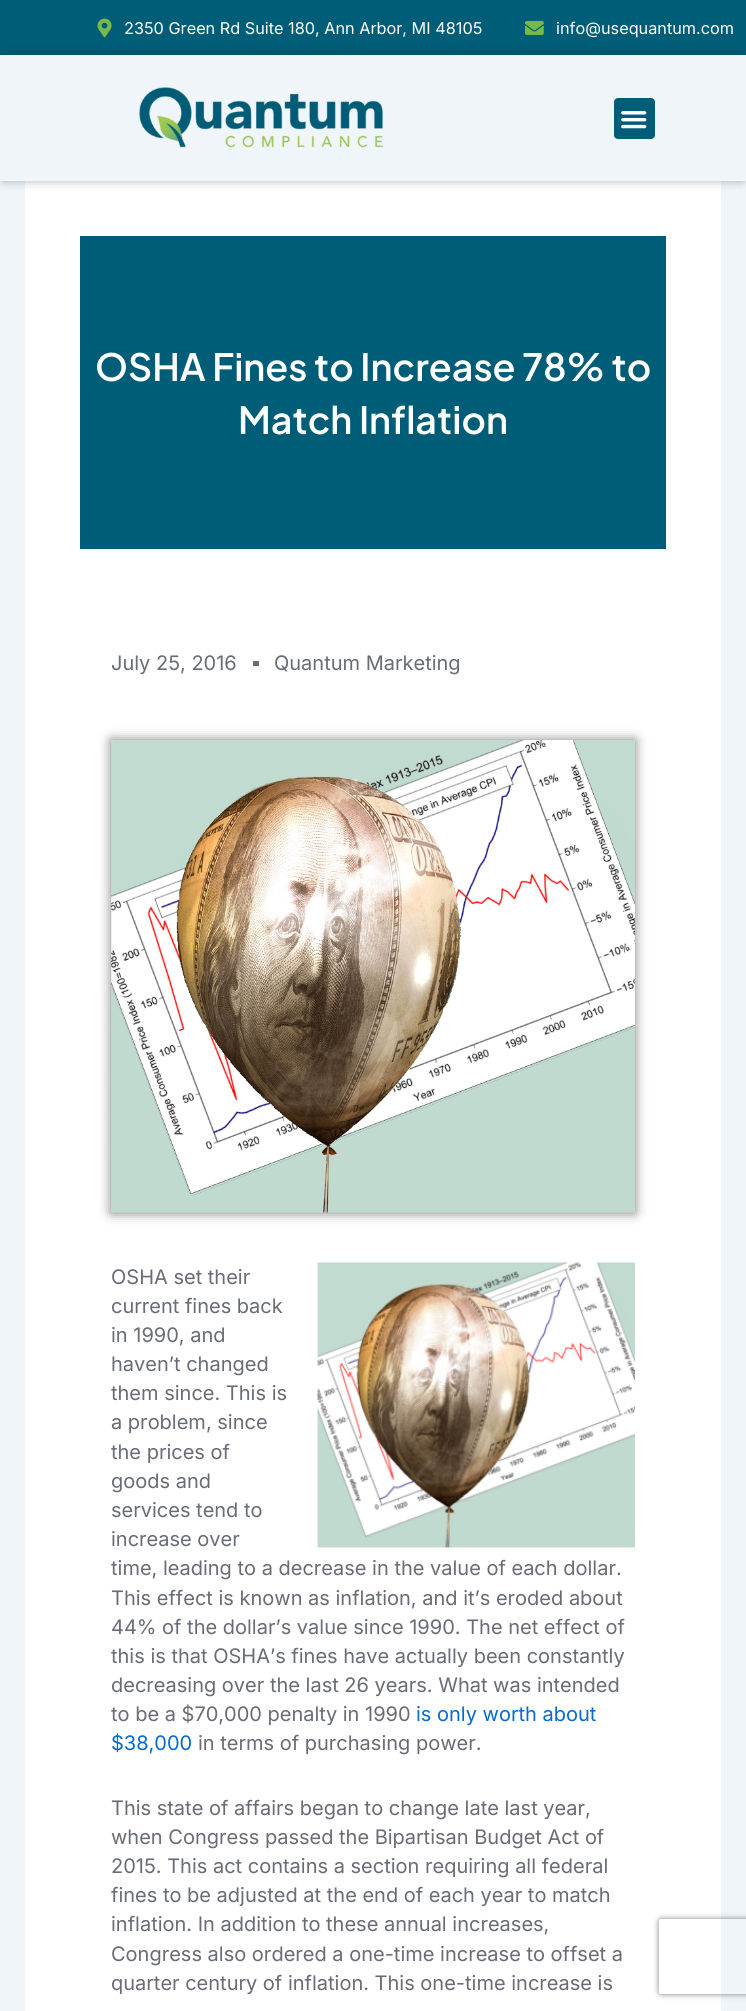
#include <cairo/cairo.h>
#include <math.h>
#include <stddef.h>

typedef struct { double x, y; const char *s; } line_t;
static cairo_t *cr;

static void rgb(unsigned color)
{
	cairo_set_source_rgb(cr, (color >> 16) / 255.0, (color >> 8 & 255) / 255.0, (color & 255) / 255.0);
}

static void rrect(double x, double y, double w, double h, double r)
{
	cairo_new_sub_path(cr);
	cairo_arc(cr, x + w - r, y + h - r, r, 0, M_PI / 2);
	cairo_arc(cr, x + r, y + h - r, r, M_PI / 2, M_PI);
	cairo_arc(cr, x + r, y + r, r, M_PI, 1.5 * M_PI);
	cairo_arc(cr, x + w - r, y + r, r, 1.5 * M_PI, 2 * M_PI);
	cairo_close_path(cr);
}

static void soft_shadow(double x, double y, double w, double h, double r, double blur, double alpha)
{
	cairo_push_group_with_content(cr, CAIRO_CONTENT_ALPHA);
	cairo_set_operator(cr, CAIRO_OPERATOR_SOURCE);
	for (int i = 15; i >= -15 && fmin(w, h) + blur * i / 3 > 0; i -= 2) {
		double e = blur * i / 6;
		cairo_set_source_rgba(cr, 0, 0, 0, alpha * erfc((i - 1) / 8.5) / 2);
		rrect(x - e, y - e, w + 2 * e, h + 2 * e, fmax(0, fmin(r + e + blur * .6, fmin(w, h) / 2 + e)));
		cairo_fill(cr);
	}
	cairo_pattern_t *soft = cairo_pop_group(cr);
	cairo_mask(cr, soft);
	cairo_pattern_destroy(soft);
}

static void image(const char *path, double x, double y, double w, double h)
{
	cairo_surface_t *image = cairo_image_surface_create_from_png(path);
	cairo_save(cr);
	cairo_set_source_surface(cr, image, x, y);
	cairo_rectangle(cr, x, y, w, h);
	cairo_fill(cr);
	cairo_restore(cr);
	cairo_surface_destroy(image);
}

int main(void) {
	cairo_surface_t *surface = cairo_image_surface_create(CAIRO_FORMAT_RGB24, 746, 2011);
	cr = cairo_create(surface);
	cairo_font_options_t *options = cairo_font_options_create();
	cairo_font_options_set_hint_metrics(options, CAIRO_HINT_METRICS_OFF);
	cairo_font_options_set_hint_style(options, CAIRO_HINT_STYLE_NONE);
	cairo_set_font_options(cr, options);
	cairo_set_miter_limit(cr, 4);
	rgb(0xf0f5fa);
	cairo_paint(cr);
	rgb(0x005d77);
	cairo_rectangle(cr, 0, 0, 746, 55);
	cairo_fill(cr);
	image("img/1.png", 97, 18, 15, 20);
	image("img/2.png", 525, 20, 19, 15);
	rgb(0xffffff);
	cairo_rectangle(cr, 25, 181, 696, 1830);
	cairo_fill(cr);
	cairo_save(cr);
	cairo_set_fill_rule(cr, CAIRO_FILL_RULE_EVEN_ODD);
	cairo_new_path(cr);
	cairo_move_to(cr, 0, 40);
	cairo_line_to(cr, 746, 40);
	cairo_line_to(cr, 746, 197);
	cairo_line_to(cr, 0, 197);
	cairo_close_path(cr);
	cairo_move_to(cr, 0, 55);
	cairo_line_to(cr, 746, 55);
	cairo_line_to(cr, 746, 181);
	cairo_line_to(cr, 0, 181);
	cairo_close_path(cr);
	cairo_clip(cr);
	rgb(0x000000);
	soft_shadow(4, 59, 739, 119, 0, 6, 0.5);
	cairo_restore(cr);
	image("img/3.png", 139, 87, 244, 61);
	rgb(0x005d77);
	rrect(614, 98, 41, 41, 4);
	cairo_fill(cr);
	image("img/4.png", 621, 111, 26, 18);
	cairo_rectangle(cr, 80, 236, 586, 313);
	cairo_fill(cr);
	rgb(0x676c75);
	cairo_rectangle(cr, 253, 661, 6, 5);
	cairo_fill(cr);
	rgb(0x000000);
	soft_shadow(111, 740, 524, 473, 0, 6, 0.5);
	image("img/5.png", 111, 740, 524, 473);
	image("img/6.png", 317, 1262, 318, 286);
	cairo_save(cr);
	cairo_set_fill_rule(cr, CAIRO_FILL_RULE_EVEN_ODD);
	cairo_new_path(cr);
	cairo_move_to(cr, 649, 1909);
	cairo_line_to(cr, 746, 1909);
	cairo_line_to(cr, 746, 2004);
	cairo_line_to(cr, 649, 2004);
	cairo_close_path(cr);
	cairo_move_to(cr, 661.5, 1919);
	cairo_line_to(cr, 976.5, 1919);
	cairo_curve_to(cr, 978, 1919, 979, 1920, 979, 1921.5);
	cairo_line_to(cr, 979, 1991.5);
	cairo_curve_to(cr, 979, 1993, 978, 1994, 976.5, 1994);
	cairo_line_to(cr, 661.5, 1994);
	cairo_curve_to(cr, 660, 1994, 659, 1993, 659, 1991.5);
	cairo_line_to(cr, 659, 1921.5);
	cairo_curve_to(cr, 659, 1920, 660, 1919, 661.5, 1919);
	cairo_close_path(cr);
	cairo_clip(cr);
	rgb(0x808080);
	soft_shadow(659, 1919, 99, 75, 2.5, 3, 1);
	cairo_restore(cr);
	cairo_select_font_face(cr, "Inter", CAIRO_FONT_SLANT_NORMAL, CAIRO_FONT_WEIGHT_NORMAL);
	cairo_set_font_size(cr, 16.25);
	rgb(0xffffff);
	cairo_move_to(cr, 124, 34);
	cairo_show_text(cr, "2350 Green Rd Suite 180, Ann Arbor, MI 48105");
	cairo_move_to(cr, 556, 34);
	cairo_show_text(cr, "info@usequantum.com");
	cairo_select_font_face(cr, "Plus Jakarta Sans SemiBold", CAIRO_FONT_SLANT_NORMAL, CAIRO_FONT_WEIGHT_NORMAL);
	cairo_set_font_size(cr, 37.5);
	cairo_move_to(cr, 95, 381);
	cairo_show_text(cr, "OSHA Fines to Increase 78% to");
	cairo_move_to(cr, 238, 434);
	cairo_show_text(cr, "Match Inflation");
	cairo_select_font_face(cr, "Inter", CAIRO_FONT_SLANT_NORMAL, CAIRO_FONT_WEIGHT_NORMAL);
	cairo_set_font_size(cr, 20);
	rgb(0x676c75);
	{
		static const line_t items[] = {
			{111, 670, "July 25, 2016"},
			{274, 670, "Quantum Marketing"},
			{111, 1284, "OSHA set their"},
			{111, 1313, "current fines back"},
			{111, 1342, "in 1990, and"},
			{111, 1371, "haven’t changed"},
			{111, 1400, "them since. This is"},
			{111, 1429, "a problem, since"},
			{111, 1459, "the prices of"},
			{111, 1488, "goods and"},
			{111, 1517, "services tend to"},
			{111, 1546, "increase over"},
			{111, 1575, "time, leading to a decrease in the value of each dollar."},
			{111, 1605, "This effect is known as inflation, and it’s eroded about"},
			{111, 1634, "44% of the dollar’s value since 1990. The net effect of"},
			{111, 1663, "this is that OSHA’s fines have actually been constantly"},
			{111, 1692, "decreasing over the last 26 years. What was intended"},
			{111, 1721, "to be a $70,000 penalty in 1990"},
		};
		for (size_t i = 0; i < sizeof items / sizeof *items; i++) {
			cairo_move_to(cr, items[i].x, items[i].y);
			cairo_show_text(cr, items[i].s);
		}
	}
	rgb(0x046bd2);
	cairo_move_to(cr, 416, 1721);
	cairo_show_text(cr, "is only worth about");
	cairo_move_to(cr, 111, 1750);
	cairo_show_text(cr, "$38,000");
	rgb(0x676c75);
	{
		static const line_t items[] = {
			{198, 1750, "in terms of purchasing power."},
			{111, 1815, "This state of affairs began to change late last year,"},
			{111, 1844, "when Congress passed the Bipartisan Budget Act of"},
			{111, 1873, "2015. This act contains a section requiring all federal"},
			{111, 1902, "fines to be adjusted at the end of each year to match"},
			{111, 1931, "inflation. In addition to these annual increases,"},
			{111, 1961, "Congress also ordered a one-time increase to offset a"},
			{111, 1990, "quarter century of inflation. This one-time increase is"},
		};
		for (size_t i = 0; i < sizeof items / sizeof *items; i++) {
			cairo_move_to(cr, items[i].x, items[i].y);
			cairo_show_text(cr, items[i].s);
		}
	}
	cairo_surface_write_to_png(surface, "page.png");
	cairo_font_options_destroy(options);
	cairo_destroy(cr);
	cairo_surface_destroy(surface);
	return 0;
}
